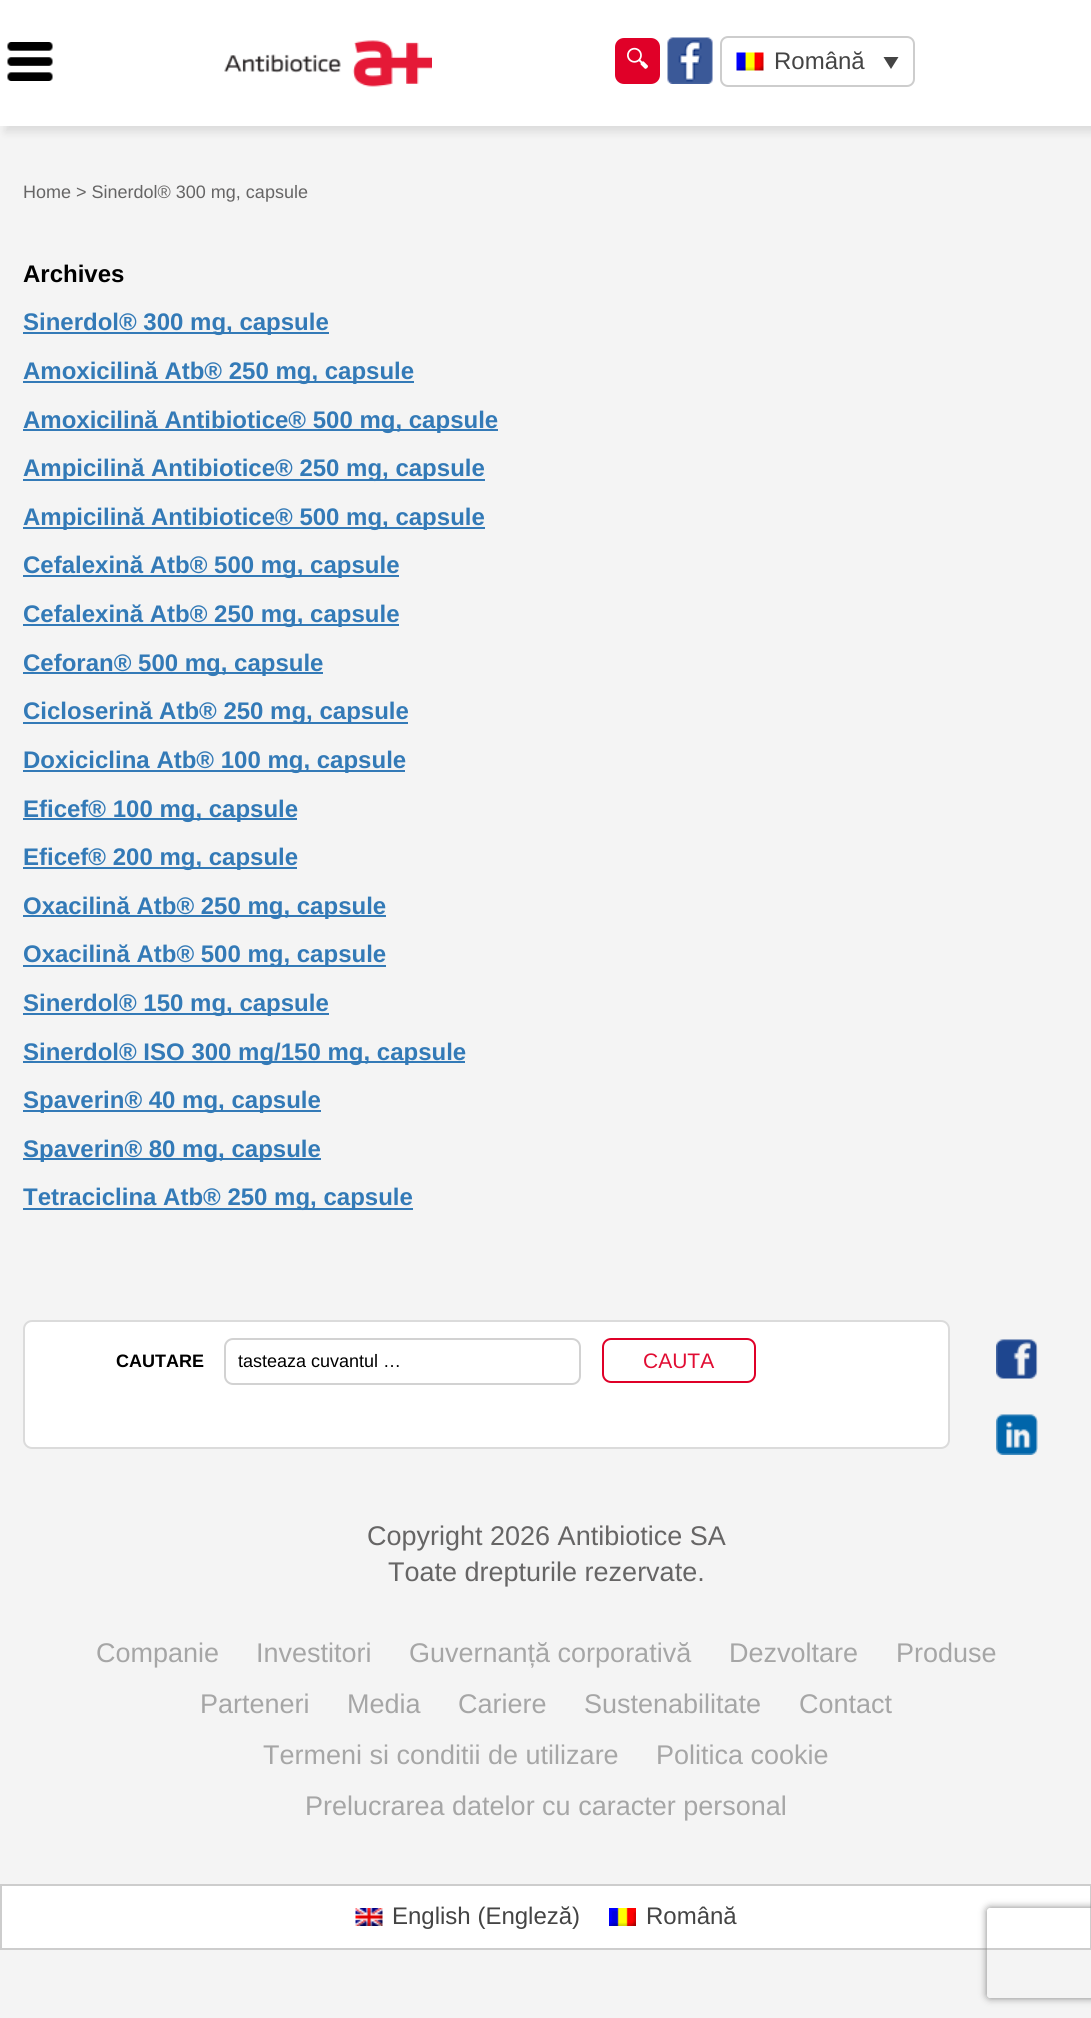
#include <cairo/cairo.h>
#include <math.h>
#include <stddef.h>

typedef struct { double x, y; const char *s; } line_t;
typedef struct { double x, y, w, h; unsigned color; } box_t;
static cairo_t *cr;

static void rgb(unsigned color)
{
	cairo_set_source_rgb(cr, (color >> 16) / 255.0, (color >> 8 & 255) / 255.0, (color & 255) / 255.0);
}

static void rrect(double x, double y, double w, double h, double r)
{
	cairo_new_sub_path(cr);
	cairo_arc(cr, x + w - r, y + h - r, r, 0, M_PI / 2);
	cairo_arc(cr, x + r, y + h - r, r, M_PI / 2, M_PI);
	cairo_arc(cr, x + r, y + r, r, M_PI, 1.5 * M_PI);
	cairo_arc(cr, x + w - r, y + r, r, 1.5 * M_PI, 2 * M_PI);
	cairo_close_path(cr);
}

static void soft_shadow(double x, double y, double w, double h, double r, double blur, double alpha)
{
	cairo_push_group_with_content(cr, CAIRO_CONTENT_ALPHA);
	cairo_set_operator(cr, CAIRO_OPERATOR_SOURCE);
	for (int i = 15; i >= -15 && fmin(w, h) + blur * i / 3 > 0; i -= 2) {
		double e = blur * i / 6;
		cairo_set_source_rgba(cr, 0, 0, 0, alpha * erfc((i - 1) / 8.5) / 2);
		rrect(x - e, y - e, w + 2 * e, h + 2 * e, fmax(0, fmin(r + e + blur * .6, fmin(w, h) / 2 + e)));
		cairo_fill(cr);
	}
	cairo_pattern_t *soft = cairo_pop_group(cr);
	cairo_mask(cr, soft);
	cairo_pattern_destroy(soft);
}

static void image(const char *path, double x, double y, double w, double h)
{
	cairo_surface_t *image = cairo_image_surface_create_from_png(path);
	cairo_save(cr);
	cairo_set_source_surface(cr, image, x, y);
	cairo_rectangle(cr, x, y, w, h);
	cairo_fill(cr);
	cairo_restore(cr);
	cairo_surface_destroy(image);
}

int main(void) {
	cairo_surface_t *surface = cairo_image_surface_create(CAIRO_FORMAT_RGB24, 1091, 2018);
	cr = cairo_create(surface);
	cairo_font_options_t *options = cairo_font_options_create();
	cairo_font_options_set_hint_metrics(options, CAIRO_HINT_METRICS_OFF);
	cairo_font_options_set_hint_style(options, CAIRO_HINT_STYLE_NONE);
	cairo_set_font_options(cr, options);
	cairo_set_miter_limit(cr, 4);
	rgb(0xf4f4f4);
	cairo_paint(cr);
	rgb(0x000000);
	soft_shadow(5, 6, 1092, 126, 0, 4, 0.1);
	rgb(0xffffff);
	cairo_rectangle(cr, 0, 0, 1091, 126);
	cairo_fill(cr);
	image("img/1.png", 7, 42, 46, 39);
	image("img/2.png", 224, 40, 208, 47);
	rgb(0xe00028);
	rrect(616, 39, 43, 44, 8);
	cairo_fill_preserve(cr);
	cairo_stroke(cr);
	image("img/3.png", 627, 47, 21, 22);
	image("img/4.png", 667, 37, 46, 47);
	rrect(721, 37, 193, 49, 7);
	rgb(0xcdcdcd);
	cairo_stroke(cr);
	image("img/5.png", 736, 52, 28, 19);
	rgb(0x444444);
	cairo_new_path(cr);
	cairo_move_to(cr, 883.5, 57);
	cairo_line_to(cr, 898.5, 57);
	cairo_line_to(cr, 891, 69);
	cairo_close_path(cr);
	cairo_fill(cr);
	{
		static const box_t items[] = {
			{23, 332, 306, 2, 0x337ab7},
			{23, 381, 391, 2, 0x337ab7},
			{23, 429, 475, 2, 0x337ab7},
			{23, 479, 462, 2, 0x337ab7},
			{23, 527, 462, 2, 0x337ab7},
			{23, 575, 376, 2, 0x337ab7},
			{23, 624, 376, 2, 0x337ab7},
			{23, 672, 300, 2, 0x337ab7},
			{23, 722, 385, 2, 0x337ab7},
			{23, 770, 382, 2, 0x337ab7},
			{23, 818, 274, 2, 0x337ab7},
			{23, 867, 274, 2, 0x337ab7},
			{23, 915, 363, 2, 0x337ab7},
			{23, 965, 363, 2, 0x337ab7},
			{23, 1013, 306, 2, 0x337ab7},
			{23, 1061, 442, 2, 0x337ab7},
			{23, 1110, 298, 2, 0x337ab7},
			{23, 1158, 298, 2, 0x337ab7},
			{23, 1208, 390, 2, 0x337ab7},
		};
		for (size_t i = 0; i < sizeof items / sizeof *items; i++) {
			rgb(items[i].color);
			cairo_rectangle(cr, items[i].x, items[i].y, items[i].w, items[i].h);
			cairo_fill(cr);
		}
	}
	rgb(0xffffff);
	rrect(24, 1321, 925, 127, 8);
	cairo_fill_preserve(cr);
	rgb(0xdbdbdb);
	cairo_stroke(cr);
	rrect(225, 1339, 355, 45, 8);
	rgb(0xd2d2d2);
	cairo_stroke(cr);
	rrect(603, 1339, 152, 43, 8);
	rgb(0xdf0028);
	cairo_stroke(cr);
	image("img/6.png", 996, 1339, 42, 40);
	image("img/7.png", 996, 1414, 42, 41);
	rgb(0xffffff);
	cairo_rectangle(cr, 1, 1885, 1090, 64);
	cairo_fill_preserve(cr);
	rgb(0xcdcdcd);
	cairo_stroke(cr);
	image("img/8.png", 355, 1908, 28, 18);
	image("img/9.png", 609, 1908, 27, 18);
	cairo_save(cr);
	cairo_set_fill_rule(cr, CAIRO_FILL_RULE_EVEN_ODD);
	cairo_new_path(cr);
	cairo_move_to(cr, 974, 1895);
	cairo_line_to(cr, 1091, 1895);
	cairo_line_to(cr, 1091, 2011);
	cairo_line_to(cr, 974, 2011);
	cairo_close_path(cr);
	cairo_move_to(cr, 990, 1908);
	cairo_line_to(cr, 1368, 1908);
	cairo_curve_to(cr, 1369.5, 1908, 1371, 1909.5, 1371, 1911);
	cairo_line_to(cr, 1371, 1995);
	cairo_curve_to(cr, 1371, 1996.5, 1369.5, 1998, 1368, 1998);
	cairo_line_to(cr, 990, 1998);
	cairo_curve_to(cr, 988.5, 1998, 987, 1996.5, 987, 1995);
	cairo_line_to(cr, 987, 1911);
	cairo_curve_to(cr, 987, 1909.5, 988.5, 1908, 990, 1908);
	cairo_close_path(cr);
	cairo_clip(cr);
	rgb(0x808080);
	soft_shadow(987, 1908, 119, 90, 3, 4, 1);
	cairo_restore(cr);
	cairo_select_font_face(cr, "Liberation Sans", CAIRO_FONT_SLANT_NORMAL, CAIRO_FONT_WEIGHT_NORMAL);
	cairo_set_font_size(cr, 24);
	rgb(0x444444);
	cairo_move_to(cr, 774, 69);
	cairo_show_text(cr, "Română");
	cairo_set_font_size(cr, 18);
	rgb(0x666565);
	cairo_move_to(cr, 23, 198);
	cairo_show_text(cr, "Home > Sinerdol® 300 mg, capsule");
	cairo_select_font_face(cr, "Liberation Sans", CAIRO_FONT_SLANT_NORMAL, CAIRO_FONT_WEIGHT_BOLD);
	cairo_set_font_size(cr, 24);
	rgb(0x000000);
	cairo_move_to(cr, 23, 282);
	cairo_show_text(cr, "Archives");
	rgb(0x337ab7);
	{
		static const line_t items[] = {
			{23, 330, "Sinerdol® 300 mg, capsule"},
			{23, 379, "Amoxicilină Atb® 250 mg, capsule"},
			{23, 428, "Amoxicilină Antibiotice® 500 mg, capsule"},
			{23, 476, "Ampicilină Antibiotice® 250 mg, capsule"},
			{23, 525, "Ampicilină Antibiotice® 500 mg, capsule"},
			{23, 573, "Cefalexină Atb® 500 mg, capsule"},
			{23, 622, "Cefalexină Atb® 250 mg, capsule"},
			{23, 671, "Ceforan® 500 mg, capsule"},
			{23, 719, "Cicloserină Atb® 250 mg, capsule"},
			{23, 768, "Doxiciclina Atb® 100 mg, capsule"},
			{23, 817, "Eficef® 100 mg, capsule"},
			{23, 865, "Eficef® 200 mg, capsule"},
			{23, 914, "Oxacilină Atb® 250 mg, capsule"},
			{23, 962, "Oxacilină Atb® 500 mg, capsule"},
			{23, 1011, "Sinerdol® 150 mg, capsule"},
			{23, 1060, "Sinerdol® ISO 300 mg/150 mg, capsule"},
			{23, 1108, "Spaverin® 40 mg, capsule"},
			{23, 1157, "Spaverin® 80 mg, capsule"},
			{23, 1205, "Tetraciclina Atb® 250 mg, capsule"},
		};
		for (size_t i = 0; i < sizeof items / sizeof *items; i++) {
			cairo_move_to(cr, items[i].x, items[i].y);
			cairo_show_text(cr, items[i].s);
		}
	}
	cairo_set_font_size(cr, 18);
	rgb(0x000000);
	cairo_move_to(cr, 116, 1367);
	cairo_show_text(cr, "CAUTARE");
	cairo_select_font_face(cr, "Liberation Sans", CAIRO_FONT_SLANT_NORMAL, CAIRO_FONT_WEIGHT_NORMAL);
	cairo_move_to(cr, 238, 1367);
	cairo_show_text(cr, "tasteaza cuvantul …");
	cairo_set_font_size(cr, 21);
	rgb(0xe10d33);
	cairo_move_to(cr, 643, 1368);
	cairo_show_text(cr, "CAUTA");
	cairo_set_font_size(cr, 27);
	rgb(0x666565);
	cairo_move_to(cr, 367, 1545);
	cairo_show_text(cr, "Copyright 2026 Antibiotice SA");
	cairo_move_to(cr, 388, 1581);
	cairo_show_text(cr, "Toate drepturile rezervate.");
	rgb(0xa6a6a6);
	{
		static const line_t items[] = {
			{96, 1662, "Companie"},
			{256, 1662, "Investitori"},
			{409, 1662, "Guvernanță corporativă"},
			{729, 1662, "Dezvoltare"},
			{896, 1662, "Produse"},
			{200, 1713, "Parteneri"},
			{347, 1713, "Media"},
			{458, 1713, "Cariere"},
			{584, 1713, "Sustenabilitate"},
			{799, 1713, "Contact"},
			{263, 1764, "Termeni si conditii de utilizare"},
			{656, 1764, "Politica cookie"},
			{305, 1815, "Prelucrarea datelor cu caracter personal"},
		};
		for (size_t i = 0; i < sizeof items / sizeof *items; i++) {
			cairo_move_to(cr, items[i].x, items[i].y);
			cairo_show_text(cr, items[i].s);
		}
	}
	cairo_set_font_size(cr, 24);
	rgb(0x444444);
	cairo_move_to(cr, 392, 1924);
	cairo_show_text(cr, "English (Engleză)");
	cairo_move_to(cr, 646, 1924);
	cairo_show_text(cr, "Română");
	cairo_surface_write_to_png(surface, "page.png");
	cairo_font_options_destroy(options);
	cairo_destroy(cr);
	cairo_surface_destroy(surface);
	return 0;
}
